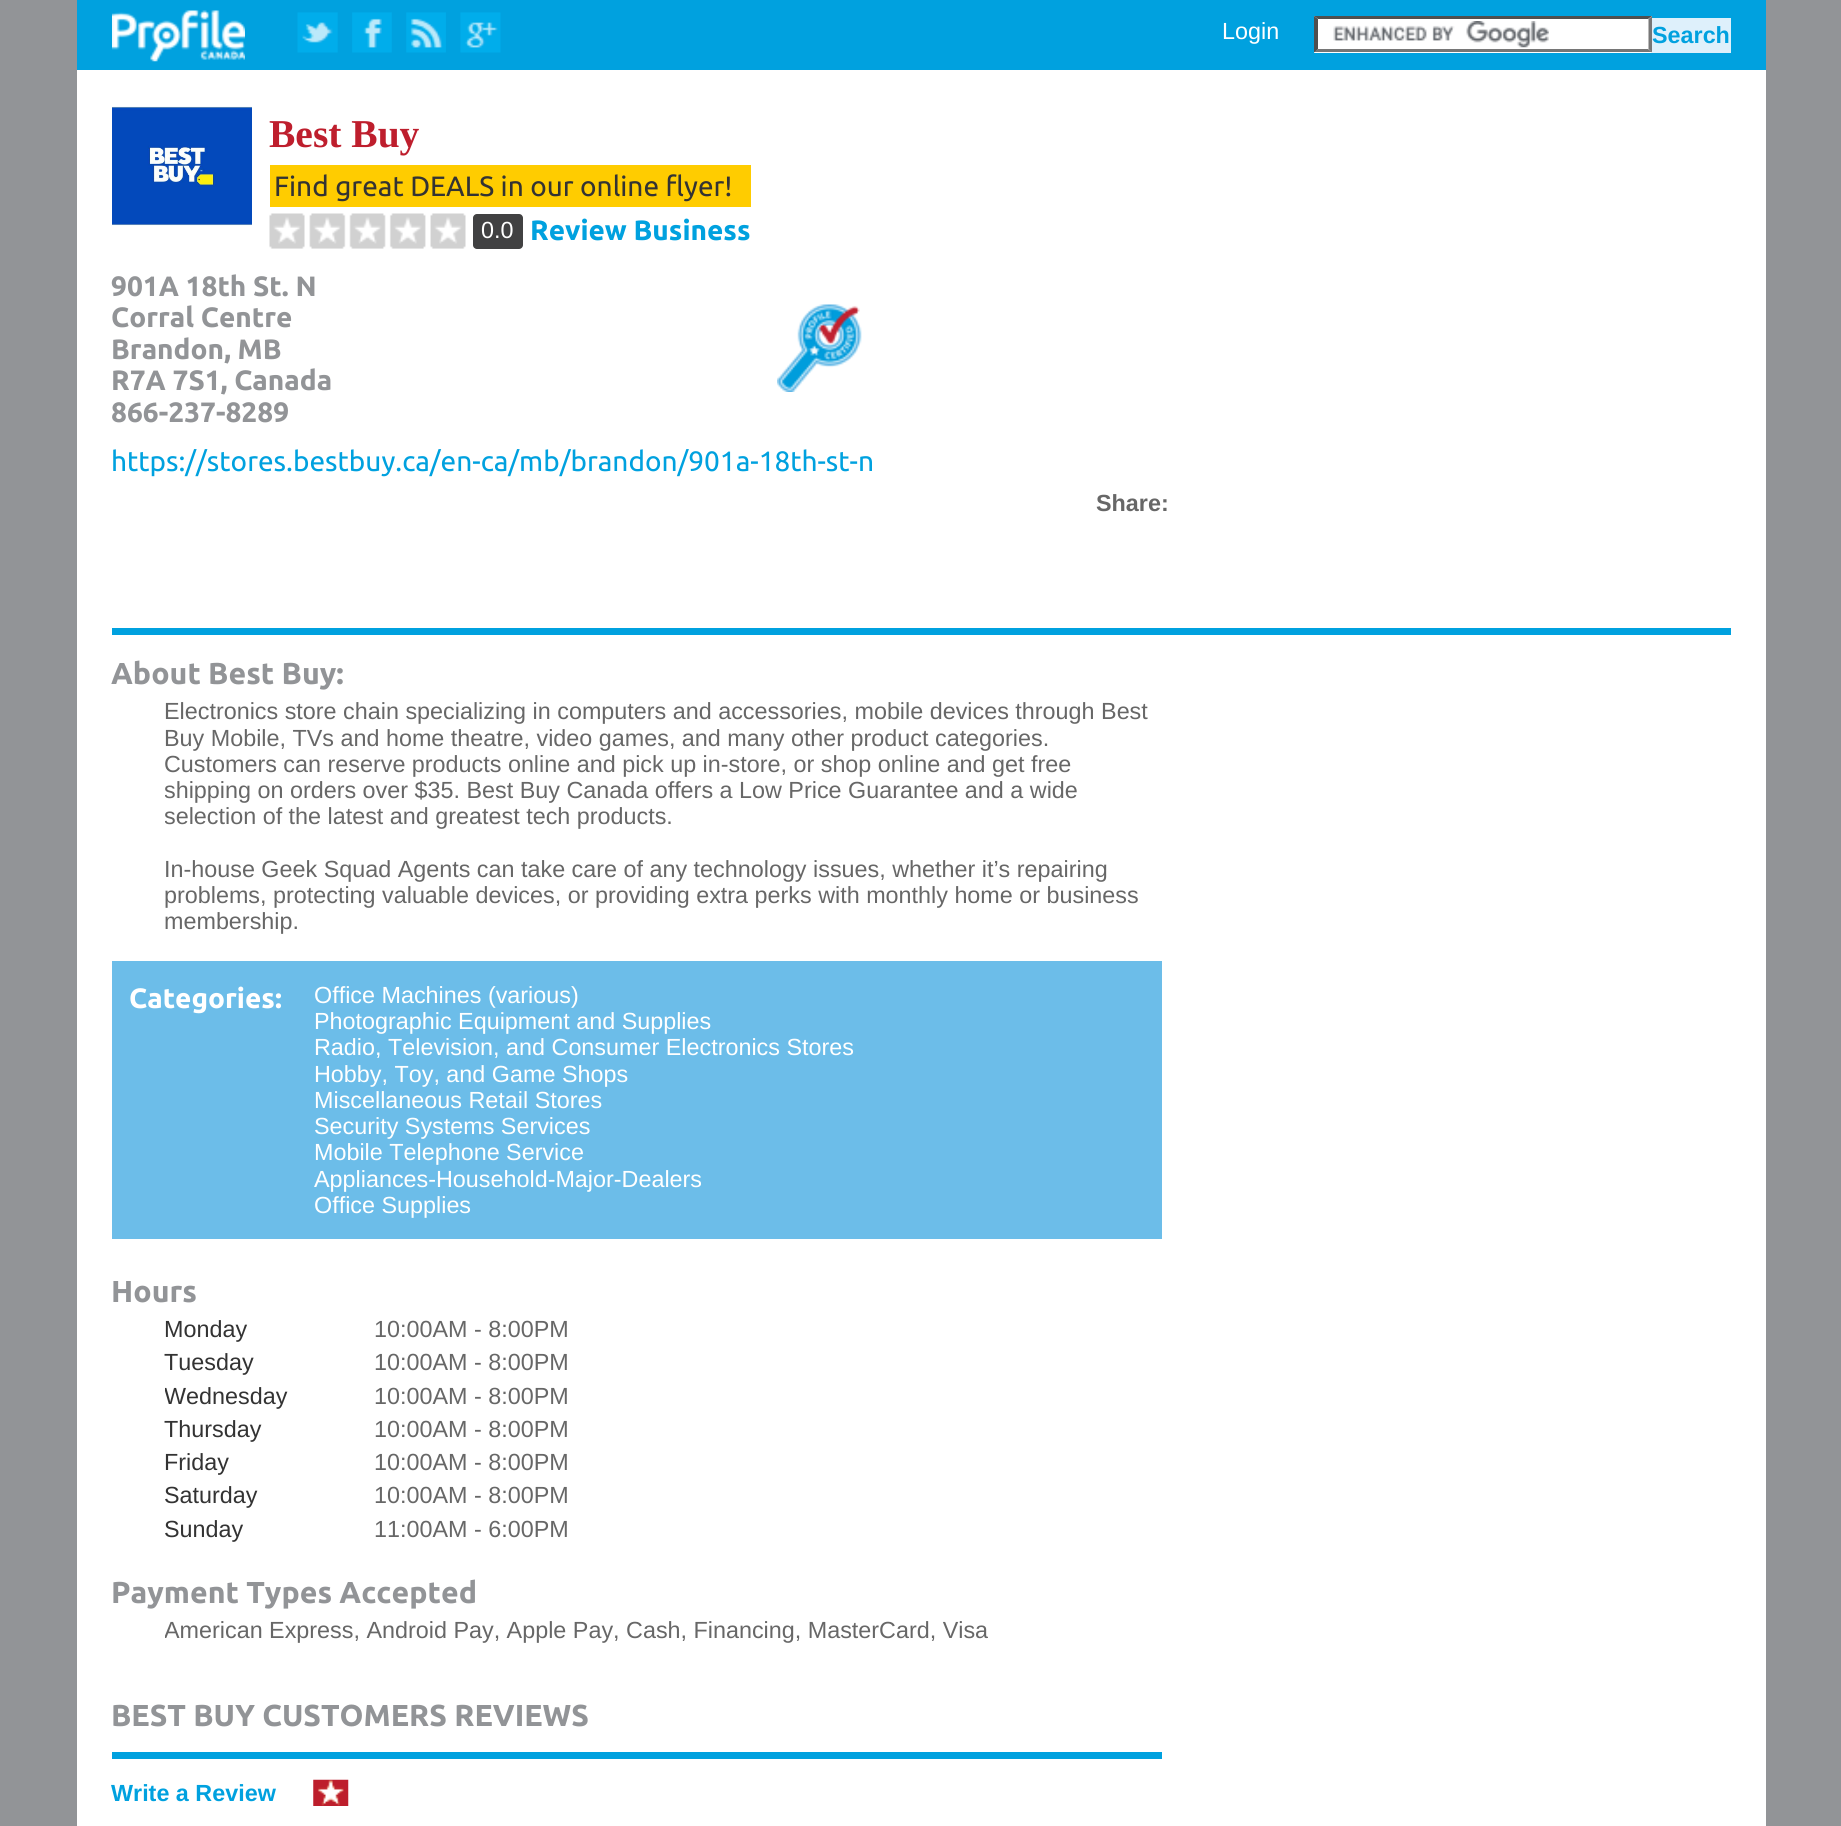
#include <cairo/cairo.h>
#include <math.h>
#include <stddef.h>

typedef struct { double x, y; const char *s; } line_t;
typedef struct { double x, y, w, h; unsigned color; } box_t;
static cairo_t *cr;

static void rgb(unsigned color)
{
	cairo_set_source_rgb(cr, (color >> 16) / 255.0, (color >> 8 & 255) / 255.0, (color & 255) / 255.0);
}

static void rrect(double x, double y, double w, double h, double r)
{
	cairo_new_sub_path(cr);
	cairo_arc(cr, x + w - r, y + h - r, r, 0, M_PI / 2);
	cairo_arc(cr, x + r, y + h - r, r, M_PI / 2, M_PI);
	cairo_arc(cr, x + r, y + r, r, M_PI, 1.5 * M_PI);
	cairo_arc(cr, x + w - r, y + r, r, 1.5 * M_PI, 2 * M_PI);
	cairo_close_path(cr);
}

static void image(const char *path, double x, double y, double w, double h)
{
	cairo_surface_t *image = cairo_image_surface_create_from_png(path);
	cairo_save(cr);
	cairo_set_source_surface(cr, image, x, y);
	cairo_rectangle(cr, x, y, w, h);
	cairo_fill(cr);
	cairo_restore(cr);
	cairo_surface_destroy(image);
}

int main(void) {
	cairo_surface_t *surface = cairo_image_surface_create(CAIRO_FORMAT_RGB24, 1841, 1826);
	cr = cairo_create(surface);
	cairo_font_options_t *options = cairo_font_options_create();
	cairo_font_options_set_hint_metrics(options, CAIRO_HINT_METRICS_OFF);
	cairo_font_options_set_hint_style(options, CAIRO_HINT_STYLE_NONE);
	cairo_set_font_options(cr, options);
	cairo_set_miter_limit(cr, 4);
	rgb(0x929497);
	cairo_paint(cr);
	rgb(0xffffff);
	cairo_rectangle(cr, 77, 70, 1689, 1756);
	cairo_fill(cr);
	rgb(0x00a1df);
	cairo_rectangle(cr, 77, 0, 1689, 70);
	cairo_fill(cr);
	image("img/1.png", 112, 10, 133, 52);
	image("img/2.png", 297, 12, 41, 41);
	image("img/3.png", 352, 12, 40, 41);
	image("img/4.png", 406, 12, 40, 41);
	image("img/5.png", 460, 12, 41, 41);
	rgb(0xffffff);
	cairo_rectangle(cr, 1314, 16, 338, 37);
	cairo_fill(cr);
	image("img/6.png", 1333, 21, 216, 27);
	rgb(0x4f4f4f);
	cairo_new_path(cr);
	cairo_move_to(cr, 1314, 16);
	cairo_line_to(cr, 1652, 16);
	cairo_line_to(cr, 1648, 19);
	cairo_line_to(cr, 1318, 19);
	cairo_close_path(cr);
	cairo_fill(cr);
	rgb(0x767676);
	cairo_new_path(cr);
	cairo_move_to(cr, 1652, 16);
	cairo_line_to(cr, 1652, 52.5);
	cairo_line_to(cr, 1648.5, 49);
	cairo_line_to(cr, 1648.5, 19);
	cairo_close_path(cr);
	cairo_fill(cr);
	cairo_new_path(cr);
	cairo_move_to(cr, 1652, 52);
	cairo_line_to(cr, 1314, 52);
	cairo_line_to(cr, 1318, 49);
	cairo_line_to(cr, 1648, 49);
	cairo_close_path(cr);
	cairo_fill(cr);
	rgb(0x4f4f4f);
	cairo_new_path(cr);
	cairo_move_to(cr, 1314, 52.5);
	cairo_line_to(cr, 1314, 16);
	cairo_line_to(cr, 1318, 19);
	cairo_line_to(cr, 1318, 49);
	cairo_close_path(cr);
	cairo_fill(cr);
	rgb(0xdef0fb);
	cairo_rectangle(cr, 1652, 18, 79, 35);
	cairo_fill(cr);
	image("img/7.png", 112, 106, 140, 120);
	rgb(0xffcc00);
	cairo_rectangle(cr, 270, 165, 481, 42);
	cairo_fill(cr);
	image("img/8.png", 269, 213, 197, 36);
	rgb(0x414142);
	rrect(473, 214, 50, 35, 4);
	cairo_fill(cr);
	image("img/9.png", 777, 304, 85, 88);
	{
		static const box_t items[] = {
			{112, 628, 1619, 7, 0x00a1df},
			{112, 961, 1050, 278, 0x6cbde9},
			{112, 1752, 1050, 7, 0x00a1df},
		};
		for (size_t i = 0; i < sizeof items / sizeof *items; i++) {
			rgb(items[i].color);
			cairo_rectangle(cr, items[i].x, items[i].y, items[i].w, items[i].h);
			cairo_fill(cr);
		}
	}
	image("img/10.png", 313, 1779, 36, 27);
	cairo_select_font_face(cr, "Liberation Sans", CAIRO_FONT_SLANT_NORMAL, CAIRO_FONT_WEIGHT_NORMAL);
	cairo_set_font_size(cr, 23.35);
	rgb(0xffffff);
	cairo_move_to(cr, 1222, 39);
	cairo_show_text(cr, "Login");
	cairo_select_font_face(cr, "Liberation Sans", CAIRO_FONT_SLANT_NORMAL, CAIRO_FONT_WEIGHT_BOLD);
	rgb(0x00a1df);
	cairo_move_to(cr, 1652, 43);
	cairo_show_text(cr, "Search");
	cairo_select_font_face(cr, "Liberation Serif", CAIRO_FONT_SLANT_NORMAL, CAIRO_FONT_WEIGHT_BOLD);
	cairo_set_font_size(cr, 39.5);
	rgb(0xbe1e2d);
	cairo_move_to(cr, 269, 147);
	cairo_show_text(cr, "Best Buy");
	cairo_select_font_face(cr, "Ubuntu", CAIRO_FONT_SLANT_NORMAL, CAIRO_FONT_WEIGHT_NORMAL);
	cairo_set_font_size(cr, 28);
	rgb(0x333333);
	cairo_move_to(cr, 274, 196);
	cairo_show_text(cr, "Find great DEALS in our online flyer!");
	cairo_select_font_face(cr, "Liberation Sans", CAIRO_FONT_SLANT_NORMAL, CAIRO_FONT_WEIGHT_NORMAL);
	cairo_set_font_size(cr, 23.35);
	rgb(0xffffff);
	cairo_move_to(cr, 481, 238);
	cairo_show_text(cr, "0.0");
	cairo_select_font_face(cr, "Ubuntu", CAIRO_FONT_SLANT_NORMAL, CAIRO_FONT_WEIGHT_BOLD);
	cairo_set_font_size(cr, 28);
	rgb(0x00a1df);
	cairo_move_to(cr, 530, 240);
	cairo_show_text(cr, "Review Business");
	rgb(0x929497);
	{
		static const line_t items[] = {
			{111, 296, "901A 18th St. N"},
			{111, 327, "Corral Centre"},
			{111, 359, "Brandon, MB"},
			{111, 390, "R7A 7S1, Canada"},
			{111, 422, "866-237-8289"},
		};
		for (size_t i = 0; i < sizeof items / sizeof *items; i++) {
			cairo_move_to(cr, items[i].x, items[i].y);
			cairo_show_text(cr, items[i].s);
		}
	}
	cairo_select_font_face(cr, "Ubuntu", CAIRO_FONT_SLANT_NORMAL, CAIRO_FONT_WEIGHT_NORMAL);
	rgb(0x00a1df);
	cairo_move_to(cr, 111, 471);
	cairo_show_text(cr, "https://stores.bestbuy.ca/en-ca/mb/brandon/901a-18th-st-n");
	cairo_select_font_face(cr, "Liberation Sans", CAIRO_FONT_SLANT_NORMAL, CAIRO_FONT_WEIGHT_BOLD);
	cairo_set_font_size(cr, 23.35);
	rgb(0x676767);
	cairo_move_to(cr, 1096, 511);
	cairo_show_text(cr, "Share:");
	cairo_select_font_face(cr, "Ubuntu", CAIRO_FONT_SLANT_NORMAL, CAIRO_FONT_WEIGHT_BOLD);
	cairo_set_font_size(cr, 30.3);
	rgb(0x929497);
	cairo_move_to(cr, 111, 684);
	cairo_show_text(cr, "About Best Buy:");
	cairo_select_font_face(cr, "Liberation Sans", CAIRO_FONT_SLANT_NORMAL, CAIRO_FONT_WEIGHT_NORMAL);
	cairo_set_font_size(cr, 23.35);
	rgb(0x676767);
	cairo_move_to(cr, 164, 719);
	cairo_show_text(cr, "Electronics store chain specializing in computers and accessories, mobile devices through Best");
	cairo_move_to(cr, 164, 746);
	cairo_show_text(cr, "Buy Mobile, TVs and home theatre, video games, and many other product categories.");
	cairo_save(cr);
	cairo_rectangle(cr, 165, 698, 997, 237);
	cairo_clip(cr);
	{
		static const line_t items[] = {
			{164, 772, "Customers can reserve products online and pick up in-store, or shop online and get free"},
			{164, 798, "shipping on orders over $35. Best Buy Canada offers a Low Price Guarantee and a wide"},
			{164, 824, "selection of the latest and greatest tech products."},
		};
		for (size_t i = 0; i < sizeof items / sizeof *items; i++) {
			cairo_move_to(cr, items[i].x, items[i].y);
			cairo_show_text(cr, items[i].s);
		}
	}
	cairo_restore(cr);
	{
		static const line_t items[] = {
			{164, 877, "In-house Geek Squad Agents can take care of any technology issues, whether it’s repairing"},
			{164, 903, "problems, protecting valuable devices, or providing extra perks with monthly home or business"},
			{164, 929, "membership."},
		};
		for (size_t i = 0; i < sizeof items / sizeof *items; i++) {
			cairo_move_to(cr, items[i].x, items[i].y);
			cairo_show_text(cr, items[i].s);
		}
	}
	cairo_select_font_face(cr, "Ubuntu", CAIRO_FONT_SLANT_NORMAL, CAIRO_FONT_WEIGHT_BOLD);
	cairo_set_font_size(cr, 28);
	rgb(0xffffff);
	cairo_move_to(cr, 129, 1008);
	cairo_show_text(cr, "Categories:");
	cairo_select_font_face(cr, "Liberation Sans", CAIRO_FONT_SLANT_NORMAL, CAIRO_FONT_WEIGHT_NORMAL);
	cairo_set_font_size(cr, 23.35);
	{
		static const line_t items[] = {
			{314, 1003, "Office Machines (various)"},
			{314, 1029, "Photographic Equipment and Supplies"},
			{314, 1055, "Radio, Television, and Consumer Electronics Stores"},
			{314, 1082, "Hobby, Toy, and Game Shops"},
			{314, 1108, "Miscellaneous Retail Stores"},
			{314, 1134, "Security Systems Services"},
			{314, 1160, "Mobile Telephone Service"},
			{314, 1187, "Appliances-Household-Major-Dealers"},
			{314, 1213, "Office Supplies"},
		};
		for (size_t i = 0; i < sizeof items / sizeof *items; i++) {
			cairo_move_to(cr, items[i].x, items[i].y);
			cairo_show_text(cr, items[i].s);
		}
	}
	cairo_select_font_face(cr, "Ubuntu", CAIRO_FONT_SLANT_NORMAL, CAIRO_FONT_WEIGHT_BOLD);
	cairo_set_font_size(cr, 30.3);
	rgb(0x929497);
	cairo_move_to(cr, 111, 1302);
	cairo_show_text(cr, "Hours");
	cairo_select_font_face(cr, "Liberation Sans", CAIRO_FONT_SLANT_NORMAL, CAIRO_FONT_WEIGHT_NORMAL);
	cairo_set_font_size(cr, 23.35);
	rgb(0x333333);
	cairo_move_to(cr, 164, 1337);
	cairo_show_text(cr, "Monday");
	rgb(0x676767);
	cairo_move_to(cr, 374, 1337);
	cairo_show_text(cr, "10:00AM - 8:00PM");
	rgb(0x333333);
	cairo_move_to(cr, 164, 1370);
	cairo_show_text(cr, "Tuesday");
	rgb(0x676767);
	cairo_move_to(cr, 374, 1370);
	cairo_show_text(cr, "10:00AM - 8:00PM");
	cairo_save(cr);
	cairo_rectangle(cr, 165, 1316, 997, 233);
	cairo_clip(cr);
	rgb(0x333333);
	cairo_move_to(cr, 164, 1404);
	cairo_show_text(cr, "Wednesday");
	cairo_restore(cr);
	cairo_move_to(cr, 374, 1404);
	cairo_show_text(cr, "10:00AM - 8:00PM");
	rgb(0x333333);
	cairo_move_to(cr, 164, 1437);
	cairo_show_text(cr, "Thursday");
	rgb(0x676767);
	cairo_move_to(cr, 374, 1437);
	cairo_show_text(cr, "10:00AM - 8:00PM");
	rgb(0x333333);
	cairo_move_to(cr, 164, 1470);
	cairo_show_text(cr, "Friday");
	rgb(0x676767);
	cairo_move_to(cr, 374, 1470);
	cairo_show_text(cr, "10:00AM - 8:00PM");
	rgb(0x333333);
	cairo_move_to(cr, 164, 1503);
	cairo_show_text(cr, "Saturday");
	rgb(0x676767);
	cairo_move_to(cr, 374, 1503);
	cairo_show_text(cr, "10:00AM - 8:00PM");
	rgb(0x333333);
	cairo_move_to(cr, 164, 1537);
	cairo_show_text(cr, "Sunday");
	rgb(0x676767);
	cairo_move_to(cr, 374, 1537);
	cairo_show_text(cr, "11:00AM - 6:00PM");
	cairo_select_font_face(cr, "Ubuntu", CAIRO_FONT_SLANT_NORMAL, CAIRO_FONT_WEIGHT_BOLD);
	cairo_set_font_size(cr, 30.3);
	rgb(0x929497);
	cairo_move_to(cr, 111, 1603);
	cairo_show_text(cr, "Payment Types Accepted");
	cairo_save(cr);
	cairo_rectangle(cr, 165, 1617, 997, 26);
	cairo_clip(cr);
	cairo_select_font_face(cr, "Liberation Sans", CAIRO_FONT_SLANT_NORMAL, CAIRO_FONT_WEIGHT_NORMAL);
	cairo_set_font_size(cr, 23.35);
	rgb(0x676767);
	cairo_move_to(cr, 164, 1638);
	cairo_show_text(cr, "American Express, Android Pay, Apple Pay, Cash, Financing, MasterCard, Visa");
	cairo_restore(cr);
	cairo_move_to(cr, 111, 1726);
	cairo_show_text(cr, "BEST BUY CUSTOMERS REVIEWS");
	cairo_select_font_face(cr, "Liberation Sans", CAIRO_FONT_SLANT_NORMAL, CAIRO_FONT_WEIGHT_BOLD);
	cairo_set_font_size(cr, 23.35);
	rgb(0x00a1df);
	cairo_move_to(cr, 111, 1801);
	cairo_show_text(cr, "Write a Review");
	cairo_surface_write_to_png(surface, "page.png");
	cairo_font_options_destroy(options);
	cairo_destroy(cr);
	cairo_surface_destroy(surface);
	return 0;
}
